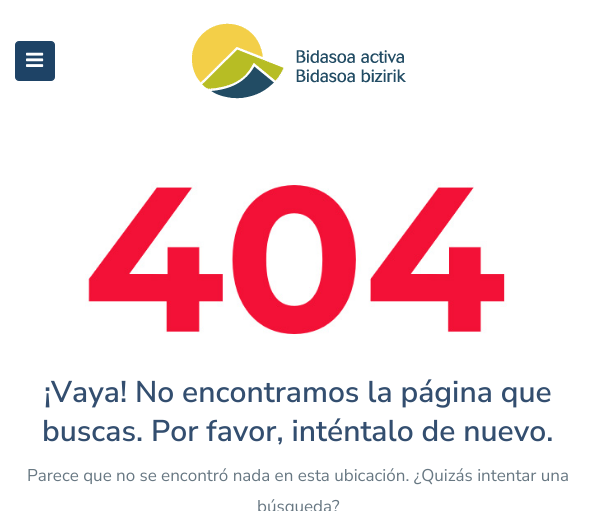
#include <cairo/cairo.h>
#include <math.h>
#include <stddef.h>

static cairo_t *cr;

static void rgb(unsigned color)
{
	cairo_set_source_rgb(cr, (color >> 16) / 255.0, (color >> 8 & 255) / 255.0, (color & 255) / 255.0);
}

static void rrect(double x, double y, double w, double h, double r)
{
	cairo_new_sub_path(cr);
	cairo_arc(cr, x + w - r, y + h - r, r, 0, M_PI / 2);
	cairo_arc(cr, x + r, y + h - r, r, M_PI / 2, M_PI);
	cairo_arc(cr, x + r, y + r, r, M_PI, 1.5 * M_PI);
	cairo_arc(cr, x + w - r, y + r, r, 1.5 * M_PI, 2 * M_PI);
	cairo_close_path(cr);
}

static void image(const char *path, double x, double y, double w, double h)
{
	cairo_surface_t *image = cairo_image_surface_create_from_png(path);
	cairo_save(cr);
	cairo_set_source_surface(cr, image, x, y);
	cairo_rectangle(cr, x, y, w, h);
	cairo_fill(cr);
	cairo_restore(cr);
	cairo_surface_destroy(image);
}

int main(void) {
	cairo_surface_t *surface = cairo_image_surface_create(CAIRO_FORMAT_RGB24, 596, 511);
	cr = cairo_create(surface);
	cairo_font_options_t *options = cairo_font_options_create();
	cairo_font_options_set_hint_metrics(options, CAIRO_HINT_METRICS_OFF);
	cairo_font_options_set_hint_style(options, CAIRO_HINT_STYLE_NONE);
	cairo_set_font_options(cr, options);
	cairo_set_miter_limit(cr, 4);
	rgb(0xffffff);
	cairo_paint(cr);
	rgb(0x1e4366);
	rrect(15.5, 41.5, 39, 39, 3.5);
	cairo_fill_preserve(cr);
	cairo_set_line_width(cr, 1);
	cairo_stroke(cr);
	image("img/1.png", 26, 52, 18, 15);
	image("img/2.png", 192, 23, 214, 76);
	image("img/3.png", 85, 182, 422, 158);
	cairo_select_font_face(cr, "Nunito Sans SemiBold", CAIRO_FONT_SLANT_NORMAL, CAIRO_FONT_WEIGHT_NORMAL);
	cairo_set_font_size(cr, 30);
	rgb(0x334e6f);
	cairo_move_to(cr, 44, 402);
	cairo_show_text(cr, "¡Vaya! No encontramos la página que");
	cairo_move_to(cr, 42, 441);
	cairo_show_text(cr, "buscas. Por favor, inténtalo de nuevo.");
	cairo_select_font_face(cr, "Nunito Sans", CAIRO_FONT_SLANT_NORMAL, CAIRO_FONT_WEIGHT_NORMAL);
	cairo_set_font_size(cr, 17);
	rgb(0x677782);
	cairo_move_to(cr, 27, 481);
	cairo_show_text(cr, "Parece que no se encontró nada en esta ubicación. ¿Quizás intentar una");
	cairo_move_to(cr, 257, 512);
	cairo_show_text(cr, "búsqueda?");
	cairo_surface_write_to_png(surface, "page.png");
	cairo_font_options_destroy(options);
	cairo_destroy(cr);
	cairo_surface_destroy(surface);
	return 0;
}
